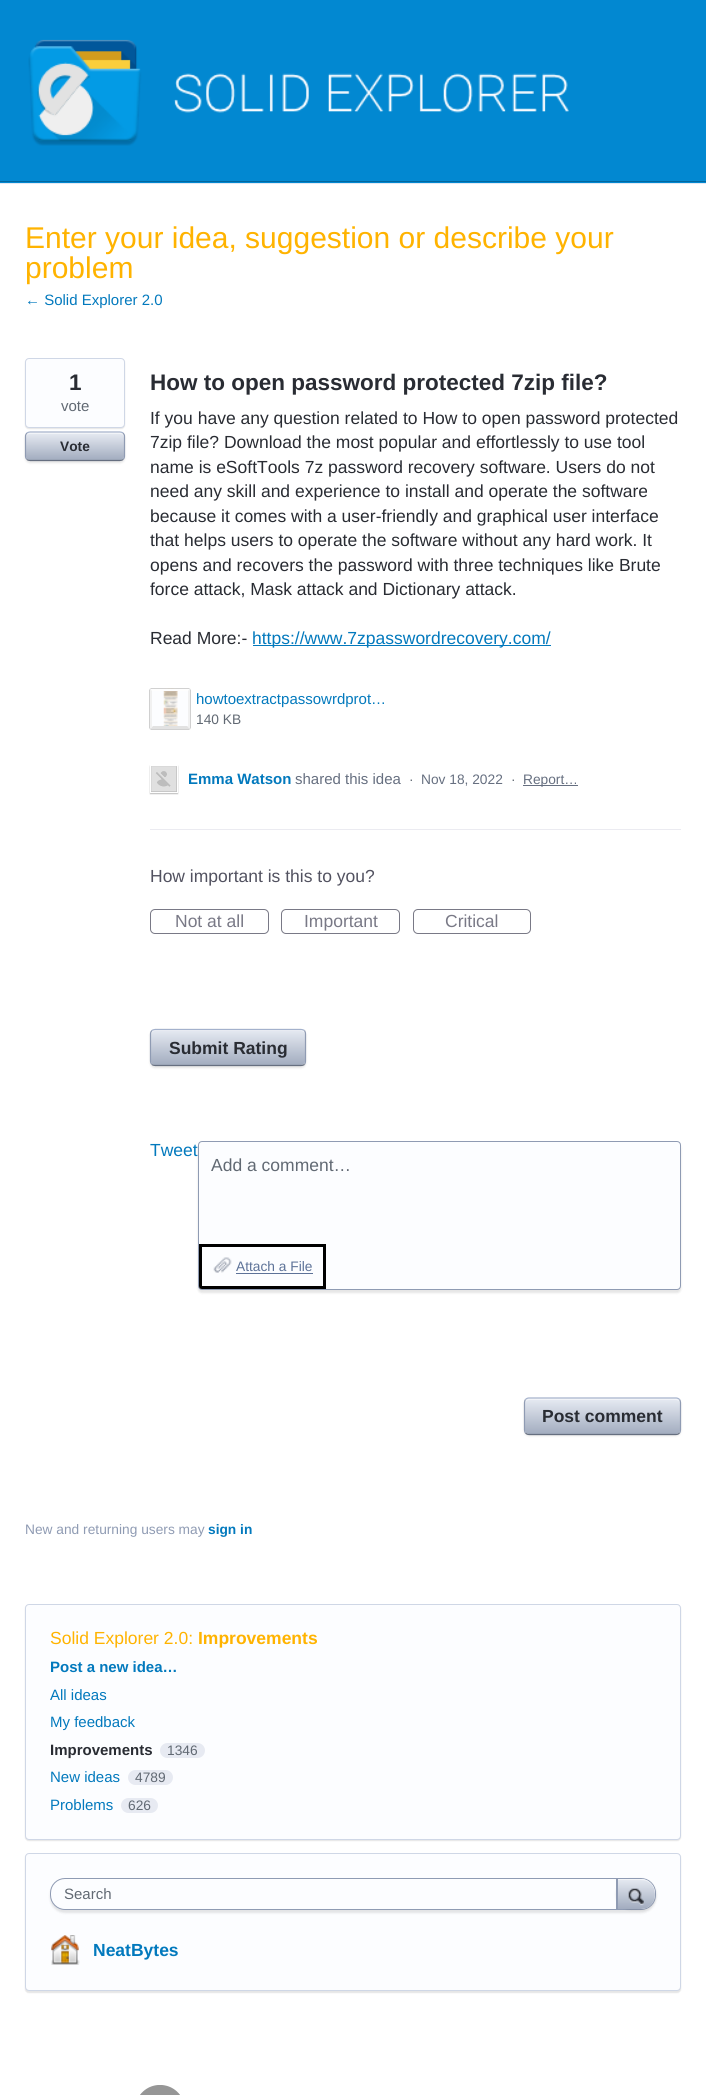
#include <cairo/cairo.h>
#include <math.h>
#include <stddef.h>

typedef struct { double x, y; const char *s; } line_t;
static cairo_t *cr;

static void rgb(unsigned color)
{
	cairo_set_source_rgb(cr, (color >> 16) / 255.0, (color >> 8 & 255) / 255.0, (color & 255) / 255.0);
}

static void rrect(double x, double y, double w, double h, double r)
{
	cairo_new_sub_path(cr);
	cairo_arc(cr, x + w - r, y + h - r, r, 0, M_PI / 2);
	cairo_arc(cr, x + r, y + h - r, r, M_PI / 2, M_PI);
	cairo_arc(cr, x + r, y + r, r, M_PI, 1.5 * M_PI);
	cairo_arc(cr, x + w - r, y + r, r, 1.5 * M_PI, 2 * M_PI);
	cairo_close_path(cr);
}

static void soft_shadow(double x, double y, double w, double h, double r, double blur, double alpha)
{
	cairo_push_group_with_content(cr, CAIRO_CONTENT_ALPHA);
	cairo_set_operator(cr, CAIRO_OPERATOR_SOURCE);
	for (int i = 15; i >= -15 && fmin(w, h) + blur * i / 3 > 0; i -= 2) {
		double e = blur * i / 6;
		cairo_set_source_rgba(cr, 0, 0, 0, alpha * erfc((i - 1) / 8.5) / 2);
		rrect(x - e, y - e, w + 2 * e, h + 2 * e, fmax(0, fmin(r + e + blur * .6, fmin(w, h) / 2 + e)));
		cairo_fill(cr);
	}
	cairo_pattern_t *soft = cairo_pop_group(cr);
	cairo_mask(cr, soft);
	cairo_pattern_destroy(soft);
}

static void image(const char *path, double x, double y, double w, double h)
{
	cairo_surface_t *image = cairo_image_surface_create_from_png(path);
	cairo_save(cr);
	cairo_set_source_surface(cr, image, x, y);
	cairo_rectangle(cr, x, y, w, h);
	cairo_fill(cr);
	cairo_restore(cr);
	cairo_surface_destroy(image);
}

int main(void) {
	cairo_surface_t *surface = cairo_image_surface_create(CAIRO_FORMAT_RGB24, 706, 2095);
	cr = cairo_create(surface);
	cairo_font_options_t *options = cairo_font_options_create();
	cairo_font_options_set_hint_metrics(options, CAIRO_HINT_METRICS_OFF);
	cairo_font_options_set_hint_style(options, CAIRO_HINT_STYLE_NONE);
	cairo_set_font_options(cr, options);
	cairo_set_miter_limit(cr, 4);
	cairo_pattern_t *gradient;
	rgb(0xffffff);
	cairo_paint(cr);
	rgb(0x0288d1);
	cairo_rectangle(cr, 0, 0, 706, 183);
	cairo_fill(cr);
	rgb(0x02669d);
	cairo_rectangle(cr, 0, 181, 706, 1);
	cairo_fill(cr);
	image("img/1.png", 28, 39, 541, 107);
	rgb(0xe3e8f2);
	cairo_rectangle(cr, 0, 183, 706, 1);
	cairo_fill(cr);
	rgb(0x000000);
	soft_shadow(25, 359, 100, 70, 4, 0.5, 0.1);
	rgb(0xfcfdff);
	rrect(25.5, 358.5, 99, 69, 3.5);
	cairo_fill_preserve(cr);
	rgb(0xcfd7e6);
	cairo_set_line_width(cr, 1);
	cairo_stroke(cr);
	rgb(0x000000);
	soft_shadow(25, 433, 100, 30, 5, 1, 0.1);
	gradient = cairo_pattern_create_linear(26, 433, 26, 460);
	cairo_pattern_add_color_stop_rgba(gradient, 0, 0.902, 0.918, 0.949, 1);
	cairo_pattern_add_color_stop_rgba(gradient, 1, 0.635, 0.675, 0.749, 1);
	cairo_set_source(cr, gradient);
	cairo_pattern_destroy(gradient);
	rrect(26, 433, 98, 27, 4);
	cairo_fill(cr);
	cairo_set_source_rgba(cr, 1, 1, 1, 0.5);
	cairo_new_path(cr);
	cairo_move_to(cr, 30, 434);
	cairo_line_to(cr, 120, 434);
	cairo_curve_to(cr, 122, 434, 124, 435, 124, 438);
	cairo_curve_to(cr, 124, 429, 109, 433, 105, 433);
	cairo_line_to(cr, 45, 433);
	cairo_curve_to(cr, 41, 433, 26, 429, 26, 438);
	cairo_curve_to(cr, 26, 435, 28, 434, 30, 434);
	cairo_close_path(cr);
	cairo_fill(cr);
	cairo_new_path(cr);
	cairo_move_to(cr, 27, 433);
	cairo_curve_to(cr, 27.5, 432.5, 29, 432, 30, 432);
	cairo_line_to(cr, 120, 432);
	cairo_curve_to(cr, 121, 432, 122.5, 432.5, 123, 433);
	rgb(0xa3b1cc);
	cairo_set_line_width(cr, 1.2);
	cairo_stroke(cr);
	cairo_new_path(cr);
	cairo_move_to(cr, 123, 433);
	cairo_curve_to(cr, 124, 434, 124.5, 435, 124.5, 436);
	cairo_line_to(cr, 124.5, 456);
	cairo_curve_to(cr, 124.5, 457.5, 124, 458.5, 123, 459.5);
	rgb(0x8f9bb3);
	cairo_stroke(cr);
	cairo_new_path(cr);
	cairo_move_to(cr, 123, 459.5);
	cairo_curve_to(cr, 122.5, 460, 121, 460.5, 120, 460.5);
	cairo_line_to(cr, 30, 460.5);
	cairo_curve_to(cr, 29, 460.5, 27.5, 460, 27, 459.5);
	rgb(0x666f80);
	cairo_stroke(cr);
	cairo_new_path(cr);
	cairo_move_to(cr, 27, 459.5);
	cairo_curve_to(cr, 26, 458.5, 25.5, 457.5, 25.5, 456);
	cairo_line_to(cr, 25.5, 436);
	cairo_curve_to(cr, 25.5, 435, 26, 434, 27, 433);
	rgb(0x8f9bb3);
	cairo_stroke(cr);
	rgb(0x0279bd);
	cairo_rectangle(cr, 253, 645, 298, 1);
	cairo_fill(cr);
	rgb(0x000000);
	soft_shadow(150, 689, 40, 40, 1, 0.5, 0.75);
	rgb(0xfcfdff);
	rrect(150, 689, 40, 40, 1);
	cairo_fill(cr);
	image("img/2.png", 163, 688, 15, 38);
	rgb(0xfefefe);
	cairo_new_path(cr);
	cairo_move_to(cr, 151, 689);
	cairo_line_to(cr, 150.5, 689);
	cairo_line_to(cr, 152, 691);
	cairo_line_to(cr, 188, 691);
	cairo_line_to(cr, 189.5, 689);
	cairo_line_to(cr, 189, 689);
	cairo_close_path(cr);
	cairo_fill(cr);
	rgb(0xf1f1f1);
	cairo_new_path(cr);
	cairo_move_to(cr, 189.5, 689);
	cairo_line_to(cr, 190, 690);
	cairo_line_to(cr, 190, 728);
	cairo_line_to(cr, 189.5, 728.5);
	cairo_line_to(cr, 187, 726);
	cairo_line_to(cr, 188, 726);
	cairo_line_to(cr, 188, 691);
	cairo_close_path(cr);
	cairo_fill(cr);
	rgb(0xe2e2e2);
	cairo_new_path(cr);
	cairo_move_to(cr, 151, 729);
	cairo_line_to(cr, 150.5, 728.5);
	cairo_line_to(cr, 153, 726);
	cairo_line_to(cr, 187, 726);
	cairo_line_to(cr, 189.5, 728.5);
	cairo_line_to(cr, 189, 729);
	cairo_close_path(cr);
	cairo_fill(cr);
	rgb(0xf1f1f1);
	cairo_new_path(cr);
	cairo_move_to(cr, 152, 691);
	cairo_line_to(cr, 150.5, 689);
	cairo_line_to(cr, 150, 690);
	cairo_line_to(cr, 150, 728);
	cairo_line_to(cr, 150.5, 728.5);
	cairo_line_to(cr, 153, 726);
	cairo_line_to(cr, 152, 726);
	cairo_close_path(cr);
	cairo_fill(cr);
	rgb(0x000000);
	soft_shadow(150, 766, 28, 28, 0, 0.5, 0.25);
	cairo_rectangle(cr, 150.5, 765.5, 27, 27);
	rgb(0xffffff);
	cairo_set_line_width(cr, 1);
	cairo_stroke(cr);
	image("img/3.png", 151, 766, 26, 26);
	rgb(0x666f80);
	cairo_rectangle(cr, 523, 785, 55, 1);
	cairo_fill(cr);
	rgb(0xebebf1);
	cairo_rectangle(cr, 150, 829, 531, 1);
	cairo_fill(cr);
	rrect(150.5, 909.5, 118, 24, 4.5);
	rgb(0x797986);
	cairo_stroke(cr);
	rrect(281.5, 909.5, 118, 24, 4.5);
	cairo_stroke(cr);
	rrect(413.5, 909.5, 117, 24, 4.5);
	cairo_stroke(cr);
	rgb(0x000000);
	soft_shadow(150, 1030, 156, 38, 5, 1, 0.1);
	gradient = cairo_pattern_create_linear(151, 1030, 151, 1065);
	cairo_pattern_add_color_stop_rgba(gradient, 0, 0.902, 0.918, 0.949, 1);
	cairo_pattern_add_color_stop_rgba(gradient, 1, 0.635, 0.675, 0.749, 1);
	cairo_set_source(cr, gradient);
	cairo_pattern_destroy(gradient);
	rrect(151, 1030, 154, 35, 4);
	cairo_fill(cr);
	cairo_set_source_rgba(cr, 1, 1, 1, 0.5);
	cairo_new_path(cr);
	cairo_move_to(cr, 155, 1031);
	cairo_line_to(cr, 301, 1031);
	cairo_curve_to(cr, 303, 1031, 305, 1033, 305, 1035);
	cairo_curve_to(cr, 305, 1033, 304, 1031, 302, 1030);
	cairo_line_to(cr, 155, 1030);
	cairo_curve_to(cr, 152, 1030, 151, 1032, 151, 1035);
	cairo_curve_to(cr, 151, 1033, 153, 1031, 155, 1031);
	cairo_close_path(cr);
	cairo_fill(cr);
	cairo_new_path(cr);
	cairo_move_to(cr, 152, 1030.5);
	cairo_curve_to(cr, 152.5, 1030, 154, 1029.5, 155, 1029.5);
	cairo_line_to(cr, 301, 1029.5);
	cairo_curve_to(cr, 302.5, 1029.5, 303.5, 1030, 304.5, 1030.5);
	rgb(0xa3b1cc);
	cairo_set_line_width(cr, 1.2);
	cairo_stroke(cr);
	cairo_new_path(cr);
	cairo_move_to(cr, 304.5, 1030.5);
	cairo_curve_to(cr, 305, 1031.5, 305.5, 1032.5, 305.5, 1034);
	cairo_line_to(cr, 305.5, 1061);
	cairo_curve_to(cr, 305.5, 1062.5, 305, 1063.5, 304.5, 1064.5);
	rgb(0x8f9bb3);
	cairo_stroke(cr);
	cairo_new_path(cr);
	cairo_move_to(cr, 304.5, 1064.5);
	cairo_curve_to(cr, 303.5, 1065, 302.5, 1065.5, 301, 1065.5);
	cairo_line_to(cr, 155, 1065.5);
	cairo_curve_to(cr, 154, 1065.5, 152.5, 1065, 152, 1064.5);
	rgb(0x666f80);
	cairo_stroke(cr);
	cairo_new_path(cr);
	cairo_move_to(cr, 152, 1064.5);
	cairo_curve_to(cr, 151, 1063.5, 150.5, 1062.5, 150.5, 1061);
	cairo_line_to(cr, 150.5, 1034);
	cairo_curve_to(cr, 150.5, 1032.5, 151, 1031.5, 152, 1030.5);
	rgb(0x8f9bb3);
	cairo_stroke(cr);
	rgb(0x000000);
	soft_shadow(198, 1144, 483, 149, 4, 1, 0.1);
	rgb(0xfcfdff);
	rrect(198.5, 1141.5, 482, 148, 3.5);
	cairo_fill_preserve(cr);
	rgb(0x8f9bb3);
	cairo_set_line_width(cr, 1);
	cairo_stroke(cr);
	image("img/4.png", 213, 1257, 19, 16);
	rgb(0x000000);
	cairo_set_fill_rule(cr, CAIRO_FILL_RULE_EVEN_ODD);
	cairo_new_path(cr);
	cairo_move_to(cr, 199, 1244);
	cairo_line_to(cr, 199, 1286);
	cairo_curve_to(cr, 199, 1288, 200, 1289, 202, 1289);
	cairo_line_to(cr, 326, 1289);
	cairo_line_to(cr, 326, 1244);
	cairo_close_path(cr);
	cairo_move_to(cr, 202, 1247);
	cairo_line_to(cr, 202, 1286);
	cairo_line_to(cr, 323, 1286);
	cairo_line_to(cr, 323, 1247);
	cairo_close_path(cr);
	cairo_fill(cr);
	rgb(0x5d7298);
	cairo_rectangle(cr, 236, 1273, 77, 1);
	cairo_fill(cr);
	rgb(0x000000);
	soft_shadow(524, 1399, 157, 37, 5, 1, 0.1);
	gradient = cairo_pattern_create_linear(525, 1399, 525, 1434);
	cairo_pattern_add_color_stop_rgba(gradient, 0, 0.902, 0.918, 0.949, 1);
	cairo_pattern_add_color_stop_rgba(gradient, 1, 0.635, 0.675, 0.749, 1);
	cairo_set_source(cr, gradient);
	cairo_pattern_destroy(gradient);
	rrect(525, 1399, 155, 35, 4);
	cairo_fill(cr);
	cairo_set_source_rgba(cr, 1, 1, 1, 0.5);
	cairo_set_fill_rule(cr, CAIRO_FILL_RULE_WINDING);
	cairo_new_path(cr);
	cairo_move_to(cr, 529, 1400);
	cairo_line_to(cr, 676, 1400);
	cairo_curve_to(cr, 678, 1400, 680, 1402, 680, 1404);
	cairo_curve_to(cr, 680, 1402, 679, 1400, 677, 1399);
	cairo_line_to(cr, 528, 1399);
	cairo_curve_to(cr, 526, 1400, 525, 1402, 525, 1404);
	cairo_curve_to(cr, 525, 1402, 527, 1400, 529, 1400);
	cairo_close_path(cr);
	cairo_fill(cr);
	cairo_new_path(cr);
	cairo_move_to(cr, 525.5, 1399.5);
	cairo_curve_to(cr, 526.5, 1398.5, 527.5, 1398, 529, 1398);
	cairo_line_to(cr, 676, 1398);
	cairo_curve_to(cr, 677.5, 1398, 678.5, 1398.5, 679.5, 1399.5);
	rgb(0xa3b1cc);
	cairo_set_line_width(cr, 1.2);
	cairo_stroke(cr);
	cairo_new_path(cr);
	cairo_move_to(cr, 679.5, 1399.5);
	cairo_curve_to(cr, 680, 1400, 680.5, 1401.5, 680.5, 1402.5);
	cairo_line_to(cr, 680.5, 1430);
	cairo_curve_to(cr, 680.5, 1431, 680, 1432.5, 679.5, 1433);
	rgb(0x8f9bb3);
	cairo_stroke(cr);
	cairo_new_path(cr);
	cairo_move_to(cr, 679.5, 1433);
	cairo_curve_to(cr, 678.5, 1434, 677.5, 1434.5, 676, 1434.5);
	cairo_line_to(cr, 529, 1434.5);
	cairo_curve_to(cr, 527.5, 1434.5, 526.5, 1434, 525.5, 1433);
	rgb(0x666f80);
	cairo_stroke(cr);
	cairo_new_path(cr);
	cairo_move_to(cr, 525.5, 1433);
	cairo_curve_to(cr, 525, 1432.5, 524.5, 1431, 524.5, 1430);
	cairo_line_to(cr, 524.5, 1402.5);
	cairo_curve_to(cr, 524.5, 1401.5, 525, 1400, 525.5, 1399.5);
	rgb(0x8f9bb3);
	cairo_stroke(cr);
	rgb(0x000000);
	soft_shadow(25, 1605, 656, 236, 4, 0.5, 0.1);
	rgb(0xfcfdff);
	rrect(25.5, 1604.5, 655, 235, 3.5);
	cairo_fill_preserve(cr);
	rgb(0xcfd7e6);
	cairo_set_line_width(cr, 1);
	cairo_stroke(cr);
	rgb(0xe7eaf2);
	rrect(160, 1743, 45, 15, 7.5);
	cairo_fill(cr);
	rrect(128, 1770, 45, 15, 7.5);
	cairo_fill(cr);
	rrect(121, 1798, 37, 15, 7.5);
	cairo_fill(cr);
	rgb(0x000000);
	soft_shadow(25, 1854, 656, 139, 4, 0.5, 0.1);
	rgb(0xfcfdff);
	rrect(25.5, 1853.5, 655, 137, 3.5);
	cairo_fill_preserve(cr);
	rgb(0xcfd7e6);
	cairo_stroke(cr);
	rgb(0x000000);
	soft_shadow(50, 1880, 606, 33, 15, 1, 0.1);
	rgb(0xfcfdff);
	rrect(50.5, 1878.5, 605, 31, 14.5);
	cairo_fill_preserve(cr);
	rgb(0x8f9bb3);
	cairo_stroke(cr);
	cairo_save(cr);
	cairo_set_fill_rule(cr, CAIRO_FILL_RULE_EVEN_ODD);
	cairo_new_path(cr);
	cairo_move_to(cr, 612, 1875);
	cairo_line_to(cr, 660, 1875);
	cairo_line_to(cr, 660, 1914);
	cairo_line_to(cr, 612, 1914);
	cairo_close_path(cr);
	cairo_move_to(cr, 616, 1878);
	cairo_line_to(cr, 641, 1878);
	cairo_curve_to(cr, 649.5, 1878, 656, 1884.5, 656, 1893);
	cairo_line_to(cr, 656, 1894);
	cairo_curve_to(cr, 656, 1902.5, 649.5, 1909, 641, 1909);
	cairo_line_to(cr, 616, 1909);
	cairo_close_path(cr);
	cairo_clip(cr);
	rgb(0x000000);
	soft_shadow(616, 1879, 40, 31, 15, 1, 0.1);
	cairo_restore(cr);
	gradient = cairo_pattern_create_linear(618, 1879, 618, 1909);
	cairo_pattern_add_color_stop_rgba(gradient, 0, 0.902, 0.918, 0.949, 1);
	cairo_pattern_add_color_stop_rgba(gradient, 1, 0.635, 0.675, 0.749, 1);
	cairo_set_source(cr, gradient);
	cairo_pattern_destroy(gradient);
	cairo_new_path(cr);
	cairo_move_to(cr, 617.5, 1879);
	cairo_line_to(cr, 617.5, 1909);
	cairo_line_to(cr, 633, 1909);
	cairo_curve_to(cr, 637.5, 1909, 642.5, 1909.5, 646.5, 1908);
	cairo_curve_to(cr, 660, 1901.5, 656.5, 1879, 641, 1879);
	cairo_close_path(cr);
	cairo_fill(cr);
	cairo_set_source_rgba(cr, 1, 1, 1, 0.5);
	cairo_new_path(cr);
	cairo_move_to(cr, 618, 1880);
	cairo_line_to(cr, 618, 1909);
	cairo_line_to(cr, 617.5, 1909);
	cairo_line_to(cr, 617.5, 1879);
	cairo_line_to(cr, 641, 1879);
	cairo_curve_to(cr, 648.5, 1879, 655, 1885.5, 655, 1893);
	cairo_line_to(cr, 655, 1894);
	cairo_curve_to(cr, 655, 1886, 649, 1880, 641, 1880);
	cairo_close_path(cr);
	cairo_fill(cr);
	rgb(0x8f9bb3);
	cairo_new_path(cr);
	cairo_move_to(cr, 643.5, 1909);
	cairo_curve_to(cr, 650.5, 1907.5, 655, 1901, 655, 1894);
	cairo_line_to(cr, 655, 1895);
	cairo_curve_to(cr, 655, 1902, 650, 1907.5, 643.5, 1909);
	cairo_close_path(cr);
	cairo_fill(cr);
	cairo_rectangle(cr, 616, 1879, 2, 30);
	cairo_fill(cr);
	image("img/5.png", 628, 1888, 16, 18);
	image("img/6.png", 51, 1935, 29, 30);
	image("img/7.png", 140, 2085, 40, 10);
	cairo_select_font_face(cr, "Liberation Sans", CAIRO_FONT_SLANT_NORMAL, CAIRO_FONT_WEIGHT_NORMAL);
	cairo_set_font_size(cr, 30);
	rgb(0xffb300);
	cairo_move_to(cr, 25, 248);
	cairo_show_text(cr, "Enter your idea, suggestion or describe your");
	cairo_move_to(cr, 25, 278);
	cairo_show_text(cr, "problem");
	cairo_set_font_size(cr, 15);
	rgb(0x0279bd);
	cairo_move_to(cr, 25, 305);
	cairo_show_text(cr, "← Solid Explorer 2.0");
	cairo_select_font_face(cr, "Liberation Sans", CAIRO_FONT_SLANT_NORMAL, CAIRO_FONT_WEIGHT_BOLD);
	cairo_set_font_size(cr, 22.5);
	rgb(0x292c33);
	cairo_move_to(cr, 69, 390);
	cairo_show_text(cr, "1");
	cairo_select_font_face(cr, "Liberation Sans", CAIRO_FONT_SLANT_NORMAL, CAIRO_FONT_WEIGHT_NORMAL);
	cairo_set_font_size(cr, 15);
	rgb(0x616973);
	cairo_move_to(cr, 61, 411);
	cairo_show_text(cr, "vote");
	cairo_select_font_face(cr, "Liberation Sans", CAIRO_FONT_SLANT_NORMAL, CAIRO_FONT_WEIGHT_BOLD);
	cairo_set_font_size(cr, 13.75);
	rgb(0x292c33);
	cairo_move_to(cr, 60, 451);
	cairo_show_text(cr, "Vote");
	cairo_set_font_size(cr, 22.5);
	cairo_move_to(cr, 150, 390);
	cairo_show_text(cr, "How to open password protected 7zip file?");
	cairo_select_font_face(cr, "Liberation Sans", CAIRO_FONT_SLANT_NORMAL, CAIRO_FONT_WEIGHT_NORMAL);
	cairo_set_font_size(cr, 17.5);
	{
		static const line_t items[] = {
			{150, 424, "If you have any question related to How to open password protected"},
			{150, 448, "7zip file? Download the most popular and effortlessly to use tool"},
			{150, 473, "name is eSoftTools 7z password recovery software. Users do not"},
			{150, 497, "need any skill and experience to install and operate the software"},
			{150, 522, "because it comes with a user-friendly and graphical user interface"},
			{150, 546, "that helps users to operate the software without any hard work. It"},
			{150, 571, "opens and recovers the password with three techniques like Brute"},
			{150, 595, "force attack, Mask attack and Dictionary attack."},
			{150, 644, "Read More:-"},
		};
		for (size_t i = 0; i < sizeof items / sizeof *items; i++) {
			cairo_move_to(cr, items[i].x, items[i].y);
			cairo_show_text(cr, items[i].s);
		}
	}
	rgb(0x0279bd);
	cairo_move_to(cr, 252, 644);
	cairo_show_text(cr, "https://www.7zpasswordrecovery.com/");
	cairo_set_font_size(cr, 15);
	cairo_move_to(cr, 196, 704);
	cairo_show_text(cr, "howtoextractpassowrdprot…");
	cairo_set_font_size(cr, 13.75);
	rgb(0x616973);
	cairo_move_to(cr, 196, 724);
	cairo_show_text(cr, "140 KB");
	cairo_select_font_face(cr, "Liberation Sans", CAIRO_FONT_SLANT_NORMAL, CAIRO_FONT_WEIGHT_BOLD);
	cairo_set_font_size(cr, 15);
	rgb(0x0279bd);
	cairo_move_to(cr, 188, 784);
	cairo_show_text(cr, "Emma Watson");
	cairo_select_font_face(cr, "Liberation Sans", CAIRO_FONT_SLANT_NORMAL, CAIRO_FONT_WEIGHT_NORMAL);
	rgb(0x666f80);
	cairo_move_to(cr, 295, 784);
	cairo_show_text(cr, "shared this idea");
	cairo_set_font_size(cr, 13.75);
	rgb(0x616973);
	cairo_move_to(cr, 409, 784);
	cairo_show_text(cr, "·");
	rgb(0x666f80);
	cairo_move_to(cr, 421, 784);
	cairo_show_text(cr, "Nov 18, 2022");
	rgb(0x616973);
	cairo_move_to(cr, 511, 784);
	cairo_show_text(cr, "·");
	rgb(0x666f80);
	cairo_move_to(cr, 523, 784);
	cairo_show_text(cr, "Report…");
	cairo_set_font_size(cr, 17.5);
	rgb(0x525260);
	cairo_move_to(cr, 150, 882);
	cairo_show_text(cr, "How important is this to you?");
	rgb(0x797986);
	{
		static const line_t items[] = {
			{175, 927, "Not at all"},
			{304, 927, "Important"},
			{445, 927, "Critical"},
		};
		for (size_t i = 0; i < sizeof items / sizeof *items; i++) {
			cairo_move_to(cr, items[i].x, items[i].y);
			cairo_show_text(cr, items[i].s);
		}
	}
	cairo_select_font_face(cr, "Liberation Sans", CAIRO_FONT_SLANT_NORMAL, CAIRO_FONT_WEIGHT_BOLD);
	rgb(0x292c33);
	cairo_move_to(cr, 169, 1054);
	cairo_show_text(cr, "Submit Rating");
	cairo_select_font_face(cr, "Liberation Sans", CAIRO_FONT_SLANT_NORMAL, CAIRO_FONT_WEIGHT_NORMAL);
	rgb(0x0279bd);
	cairo_move_to(cr, 150, 1156);
	cairo_show_text(cr, "Tweet");
	rgb(0x616973);
	cairo_move_to(cr, 211, 1171);
	cairo_show_text(cr, "Add a comment…");
	cairo_set_font_size(cr, 13.75);
	rgb(0x5d7298);
	cairo_move_to(cr, 236, 1271);
	cairo_show_text(cr, "Attach a File");
	cairo_select_font_face(cr, "Liberation Sans", CAIRO_FONT_SLANT_NORMAL, CAIRO_FONT_WEIGHT_BOLD);
	cairo_set_font_size(cr, 17.5);
	rgb(0x292c33);
	cairo_move_to(cr, 542, 1422);
	cairo_show_text(cr, "Post comment");
	cairo_select_font_face(cr, "Liberation Sans", CAIRO_FONT_SLANT_NORMAL, CAIRO_FONT_WEIGHT_NORMAL);
	cairo_set_font_size(cr, 13.75);
	rgb(0x8f9bb3);
	cairo_move_to(cr, 25, 1534);
	cairo_show_text(cr, "New and returning users may");
	cairo_select_font_face(cr, "Liberation Sans", CAIRO_FONT_SLANT_NORMAL, CAIRO_FONT_WEIGHT_BOLD);
	rgb(0x0279bd);
	cairo_move_to(cr, 208, 1534);
	cairo_show_text(cr, "sign in");
	cairo_select_font_face(cr, "Liberation Sans", CAIRO_FONT_SLANT_NORMAL, CAIRO_FONT_WEIGHT_NORMAL);
	cairo_set_font_size(cr, 17.5);
	rgb(0xffb300);
	cairo_move_to(cr, 50, 1644);
	cairo_show_text(cr, "Solid Explorer 2.0:");
	cairo_select_font_face(cr, "Liberation Sans", CAIRO_FONT_SLANT_NORMAL, CAIRO_FONT_WEIGHT_BOLD);
	cairo_move_to(cr, 198, 1644);
	cairo_show_text(cr, "Improvements");
	cairo_set_font_size(cr, 15);
	rgb(0x0279bd);
	cairo_move_to(cr, 50, 1672);
	cairo_show_text(cr, "Post a new idea…");
	cairo_select_font_face(cr, "Liberation Sans", CAIRO_FONT_SLANT_NORMAL, CAIRO_FONT_WEIGHT_NORMAL);
	cairo_move_to(cr, 50, 1700);
	cairo_show_text(cr, "All ideas");
	cairo_move_to(cr, 50, 1727);
	cairo_show_text(cr, "My feedback");
	cairo_select_font_face(cr, "Liberation Sans", CAIRO_FONT_SLANT_NORMAL, CAIRO_FONT_WEIGHT_BOLD);
	rgb(0x292c33);
	cairo_move_to(cr, 50, 1755);
	cairo_show_text(cr, "Improvements");
	cairo_select_font_face(cr, "Liberation Sans", CAIRO_FONT_SLANT_NORMAL, CAIRO_FONT_WEIGHT_NORMAL);
	cairo_set_font_size(cr, 13.75);
	rgb(0x616973);
	cairo_move_to(cr, 167, 1755);
	cairo_show_text(cr, "1346");
	cairo_set_font_size(cr, 15);
	rgb(0x0279bd);
	cairo_move_to(cr, 50, 1782);
	cairo_show_text(cr, "New ideas");
	cairo_set_font_size(cr, 13.75);
	rgb(0x616973);
	cairo_move_to(cr, 135, 1782);
	cairo_show_text(cr, "4789");
	cairo_set_font_size(cr, 15);
	rgb(0x0279bd);
	cairo_move_to(cr, 50, 1810);
	cairo_show_text(cr, "Problems");
	cairo_set_font_size(cr, 13.75);
	rgb(0x616973);
	cairo_move_to(cr, 128, 1810);
	cairo_show_text(cr, "626");
	cairo_set_font_size(cr, 15);
	cairo_move_to(cr, 64, 1899);
	cairo_show_text(cr, "Search");
	cairo_select_font_face(cr, "Liberation Sans", CAIRO_FONT_SLANT_NORMAL, CAIRO_FONT_WEIGHT_BOLD);
	cairo_set_font_size(cr, 17.5);
	rgb(0x0279bd);
	cairo_move_to(cr, 93, 1956);
	cairo_show_text(cr, "NeatBytes");
	cairo_surface_write_to_png(surface, "page.png");
	cairo_font_options_destroy(options);
	cairo_destroy(cr);
	cairo_surface_destroy(surface);
	return 0;
}
